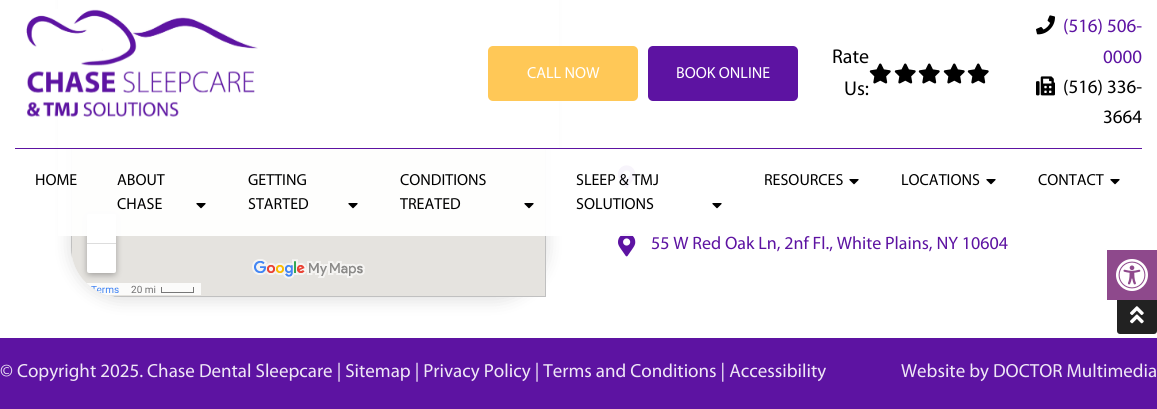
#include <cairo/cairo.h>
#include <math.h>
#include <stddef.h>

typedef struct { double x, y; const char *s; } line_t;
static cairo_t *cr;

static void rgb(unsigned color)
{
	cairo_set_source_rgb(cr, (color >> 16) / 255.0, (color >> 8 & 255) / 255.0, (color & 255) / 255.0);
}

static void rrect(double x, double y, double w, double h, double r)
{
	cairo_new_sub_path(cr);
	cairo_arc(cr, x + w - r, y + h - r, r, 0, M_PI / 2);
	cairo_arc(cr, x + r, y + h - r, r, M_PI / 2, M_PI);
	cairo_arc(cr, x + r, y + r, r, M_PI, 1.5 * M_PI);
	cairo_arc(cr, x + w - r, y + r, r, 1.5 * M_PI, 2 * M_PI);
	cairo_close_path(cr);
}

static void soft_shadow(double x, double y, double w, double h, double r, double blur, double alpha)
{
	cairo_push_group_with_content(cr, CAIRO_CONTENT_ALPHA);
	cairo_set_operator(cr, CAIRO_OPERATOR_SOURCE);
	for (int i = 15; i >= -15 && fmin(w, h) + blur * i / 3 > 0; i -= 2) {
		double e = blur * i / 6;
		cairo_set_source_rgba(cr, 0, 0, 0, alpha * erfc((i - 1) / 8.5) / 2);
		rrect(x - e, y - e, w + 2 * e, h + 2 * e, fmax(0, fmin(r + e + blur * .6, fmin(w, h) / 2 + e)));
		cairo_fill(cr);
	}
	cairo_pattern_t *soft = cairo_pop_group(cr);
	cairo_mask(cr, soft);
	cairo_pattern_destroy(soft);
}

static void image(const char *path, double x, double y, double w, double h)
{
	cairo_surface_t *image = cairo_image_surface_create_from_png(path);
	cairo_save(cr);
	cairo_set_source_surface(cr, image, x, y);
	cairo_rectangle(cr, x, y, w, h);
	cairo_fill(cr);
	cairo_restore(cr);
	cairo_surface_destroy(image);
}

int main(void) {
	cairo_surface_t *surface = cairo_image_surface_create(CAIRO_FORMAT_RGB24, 1157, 409);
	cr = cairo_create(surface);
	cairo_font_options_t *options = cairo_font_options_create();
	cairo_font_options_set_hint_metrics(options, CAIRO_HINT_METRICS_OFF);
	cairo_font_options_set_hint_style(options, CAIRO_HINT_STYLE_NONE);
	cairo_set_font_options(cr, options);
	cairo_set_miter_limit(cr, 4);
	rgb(0xffffff);
	cairo_paint(cr);
	rgb(0x000000);
	soft_shadow(71, -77, 475, 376, 50, 9, 0.14);
	rgb(0xffffff);
	cairo_rectangle(cr, 58, 0, 501, 148);
	cairo_fill(cr);
	image("img/1.png", 26, 9, 232, 108);
	rgb(0xffc857);
	rrect(488, 46, 150, 55, 5);
	cairo_fill(cr);
	rgb(0x5d13a2);
	rrect(648, 46, 150, 55, 5);
	cairo_fill(cr);
	image("img/2.png", 869, 63, 22, 21);
	image("img/2.png", 894, 63, 22, 21);
	image("img/2.png", 918, 63, 22, 21);
	image("img/2.png", 943, 63, 22, 21);
	image("img/2.png", 967, 63, 22, 21);
	image("img/3.png", 1036, 15, 19, 20);
	image("img/4.png", 1036, 76, 19, 20);
	image("img/8.png", 71, 149, 475, 148);
	image("img/9.png", 618, 165, 18, 24);
	image("img/9.png", 618, 233, 18, 24);
	cairo_set_source_rgba(cr, 1, 1, 1, 0.95);
	cairo_rectangle(cr, 58, 148, 578, 88);
	cairo_fill(cr);
	rgb(0x5d13a2);
	cairo_rectangle(cr, 15, 148, 1127, 1);
	cairo_fill(cr);
	image("img/5.png", 196, 203, 10, 6);
	image("img/5.png", 348, 203, 10, 6);
	image("img/5.png", 524, 203, 10, 6);
	image("img/6.png", 712, 203, 10, 6);
	image("img/7.png", 849, 179, 10, 6);
	image("img/6.png", 986, 179, 10, 6);
	image("img/6.png", 1110, 179, 10, 6);
	cairo_rectangle(cr, 0, 338, 1157, 71);
	cairo_fill(cr);
	rgb(0x222222);
	rrect(1117, 294, 40, 40, 3);
	cairo_fill(cr);
	rgb(0x8e498c);
	cairo_rectangle(cr, 1107, 250, 50, 50);
	cairo_fill(cr);
	image("img/10.png", 1116, 259, 32, 32);
	image("img/11.png", 1130, 306, 14, 18);
	cairo_select_font_face(cr, "Myriad", CAIRO_FONT_SLANT_NORMAL, CAIRO_FONT_WEIGHT_NORMAL);
	cairo_set_font_size(cr, 16);
	rgb(0xffffff);
	cairo_move_to(cr, 527, 78);
	cairo_show_text(cr, "CALL NOW");
	cairo_move_to(cr, 676, 78);
	cairo_show_text(cr, "BOOK ONLINE");
	cairo_set_font_size(cr, 20);
	rgb(0x000000);
	cairo_move_to(cr, 832, 63);
	cairo_show_text(cr, "Rate");
	cairo_move_to(cr, 844, 95);
	cairo_show_text(cr, "Us:");
	cairo_set_font_size(cr, 19);
	rgb(0x5d13a2);
	cairo_move_to(cr, 1063, 32);
	cairo_show_text(cr, "(516) 506-");
	cairo_move_to(cr, 1103, 63);
	cairo_show_text(cr, "0000");
	rgb(0x000000);
	cairo_move_to(cr, 1063, 93);
	cairo_show_text(cr, "(516) 336-");
	cairo_move_to(cr, 1103, 123);
	cairo_show_text(cr, "3664");
	cairo_set_font_size(cr, 16);
	{
		static const line_t items[] = {
			{35, 185, "HOME"},
			{117, 185, "ABOUT"},
			{117, 209, "CHASE"},
			{248, 185, "GETTING"},
			{248, 209, "STARTED"},
			{400, 185, "CONDITIONS"},
			{400, 209, "TREATED"},
			{576, 185, "SLEEP & TMJ"},
			{576, 209, "SOLUTIONS"},
			{764, 185, "RESOURCES"},
			{901, 185, "LOCATIONS"},
			{1038, 185, "CONTACT"},
		};
		for (size_t i = 0; i < sizeof items / sizeof *items; i++) {
			cairo_move_to(cr, items[i].x, items[i].y);
			cairo_show_text(cr, items[i].s);
		}
	}
	cairo_set_font_size(cr, 18);
	rgb(0x5d13a2);
	cairo_move_to(cr, 651, 249);
	cairo_show_text(cr, "55 W Red Oak Ln, 2nf Fl., White Plains, NY 10604");
	cairo_set_font_size(cr, 19);
	rgb(0xefe7f6);
	cairo_move_to(cr, 0, 377);
	cairo_show_text(cr, "© Copyright 2025. Chase Dental Sleepcare | Sitemap | Privacy Policy | Terms and Conditions | Accessibility");
	cairo_move_to(cr, 901, 377);
	cairo_show_text(cr, "Website by DOCTOR Multimedia");
	cairo_surface_write_to_png(surface, "page.png");
	cairo_font_options_destroy(options);
	cairo_destroy(cr);
	cairo_surface_destroy(surface);
	return 0;
}
